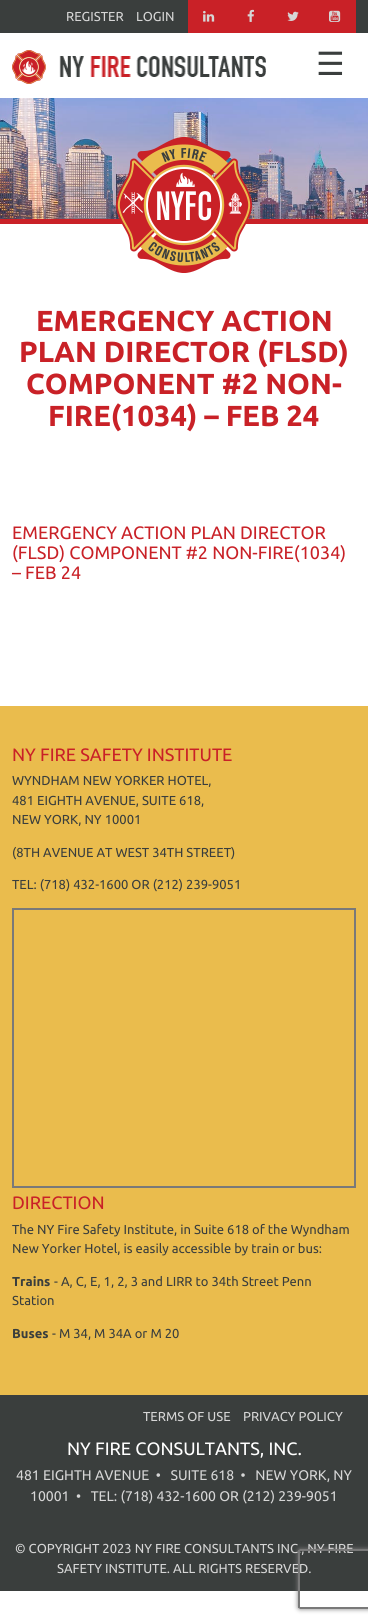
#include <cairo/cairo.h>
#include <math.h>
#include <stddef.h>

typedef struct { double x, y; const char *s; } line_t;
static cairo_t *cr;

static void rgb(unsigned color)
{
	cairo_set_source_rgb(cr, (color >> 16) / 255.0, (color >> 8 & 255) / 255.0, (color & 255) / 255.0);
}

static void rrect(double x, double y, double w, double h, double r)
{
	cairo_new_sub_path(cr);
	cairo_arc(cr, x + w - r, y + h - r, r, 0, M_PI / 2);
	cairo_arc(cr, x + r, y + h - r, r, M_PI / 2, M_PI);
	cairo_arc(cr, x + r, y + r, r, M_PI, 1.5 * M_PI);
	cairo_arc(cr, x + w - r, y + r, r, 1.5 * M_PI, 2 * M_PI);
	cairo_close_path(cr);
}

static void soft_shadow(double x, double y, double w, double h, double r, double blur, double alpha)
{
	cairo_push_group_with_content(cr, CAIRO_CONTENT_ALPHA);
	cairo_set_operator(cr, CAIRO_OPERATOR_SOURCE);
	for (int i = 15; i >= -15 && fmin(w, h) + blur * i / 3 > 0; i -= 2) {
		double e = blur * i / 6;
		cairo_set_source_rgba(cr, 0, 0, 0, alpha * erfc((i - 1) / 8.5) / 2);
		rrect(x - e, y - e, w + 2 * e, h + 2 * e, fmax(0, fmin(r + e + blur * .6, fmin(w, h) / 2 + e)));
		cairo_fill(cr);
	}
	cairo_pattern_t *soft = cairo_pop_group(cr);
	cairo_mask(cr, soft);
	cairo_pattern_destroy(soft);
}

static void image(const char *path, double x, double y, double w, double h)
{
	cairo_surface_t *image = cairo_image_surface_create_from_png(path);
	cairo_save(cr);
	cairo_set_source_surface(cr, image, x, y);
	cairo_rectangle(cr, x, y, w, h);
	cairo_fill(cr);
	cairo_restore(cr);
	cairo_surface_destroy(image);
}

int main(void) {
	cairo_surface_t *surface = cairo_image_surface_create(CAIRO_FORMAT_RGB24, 368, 1623);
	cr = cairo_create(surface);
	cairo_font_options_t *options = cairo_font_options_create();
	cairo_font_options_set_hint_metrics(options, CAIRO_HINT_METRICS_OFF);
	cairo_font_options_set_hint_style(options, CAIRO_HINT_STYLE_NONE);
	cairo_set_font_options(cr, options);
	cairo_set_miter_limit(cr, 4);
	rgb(0xffffff);
	cairo_paint(cr);
	rgb(0x3a3e3d);
	cairo_rectangle(cr, 0, 0, 368, 33);
	cairo_fill(cr);
	rgb(0xc92127);
	cairo_rectangle(cr, 188, 0, 168, 33);
	cairo_fill(cr);
	image("img/1.png", 203, 10, 12, 12);
	image("img/2.png", 247, 9, 7, 13);
	image("img/3.png", 287, 11, 12, 10);
	image("img/4.png", 329, 10, 12, 12);
	image("img/5.png", 12, 50, 254, 34);
	image("img/6.png", 0, 98, 368, 121);
	cairo_rectangle(cr, 0, 219, 368, 5);
	cairo_fill(cr);
	image("img/7.png", 116, 137, 136, 136);
	rgb(0xeabc4d);
	cairo_rectangle(cr, 0, 706, 368, 689);
	cairo_fill(cr);
	cairo_rectangle(cr, 13, 909, 342, 278);
	rgb(0x797979);
	cairo_stroke(cr);
	rgb(0x3a3e3d);
	cairo_rectangle(cr, 0, 1395, 368, 196);
	cairo_fill(cr);
	cairo_save(cr);
	cairo_set_fill_rule(cr, CAIRO_FILL_RULE_EVEN_ODD);
	cairo_new_path(cr);
	cairo_move_to(cr, 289, 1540);
	cairo_line_to(cr, 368, 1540);
	cairo_line_to(cr, 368, 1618);
	cairo_line_to(cr, 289, 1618);
	cairo_close_path(cr);
	cairo_move_to(cr, 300, 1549);
	cairo_line_to(cr, 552, 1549);
	cairo_curve_to(cr, 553, 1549, 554, 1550, 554, 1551);
	cairo_line_to(cr, 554, 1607);
	cairo_curve_to(cr, 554, 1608, 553, 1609, 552, 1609);
	cairo_line_to(cr, 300, 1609);
	cairo_curve_to(cr, 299, 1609, 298, 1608, 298, 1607);
	cairo_line_to(cr, 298, 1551);
	cairo_curve_to(cr, 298, 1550, 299, 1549, 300, 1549);
	cairo_close_path(cr);
	cairo_clip(cr);
	rgb(0x808080);
	soft_shadow(298, 1549, 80, 60, 2, 2.5, 1);
	cairo_restore(cr);
	cairo_select_font_face(cr, "Ubuntu", CAIRO_FONT_SLANT_NORMAL, CAIRO_FONT_WEIGHT_NORMAL);
	cairo_set_font_size(cr, 13);
	rgb(0xd6d6d6);
	cairo_move_to(cr, 66, 21);
	cairo_show_text(cr, "REGISTER");
	cairo_move_to(cr, 136, 21);
	cairo_show_text(cr, "LOGIN");
	cairo_select_font_face(cr, "DejaVu Sans", CAIRO_FONT_SLANT_NORMAL, CAIRO_FONT_WEIGHT_NORMAL);
	cairo_set_font_size(cr, 32);
	rgb(0x3a3e3d);
	cairo_move_to(cr, 316, 75);
	cairo_show_text(cr, "☰");
	cairo_select_font_face(cr, "Ubuntu", CAIRO_FONT_SLANT_NORMAL, CAIRO_FONT_WEIGHT_BOLD);
	cairo_set_font_size(cr, 29);
	rgb(0xc92127);
	{
		static const line_t items[] = {
			{36, 331, "EMERGENCY ACTION"},
			{19, 362, "PLAN DIRECTOR (FLSD)"},
			{26, 394, "COMPONENT #2 NON-"},
			{48, 426, "FIRE(1034) – FEB 24"},
		};
		for (size_t i = 0; i < sizeof items / sizeof *items; i++) {
			cairo_move_to(cr, items[i].x, items[i].y);
			cairo_show_text(cr, items[i].s);
		}
	}
	cairo_select_font_face(cr, "Ubuntu", CAIRO_FONT_SLANT_NORMAL, CAIRO_FONT_WEIGHT_NORMAL);
	cairo_set_font_size(cr, 18);
	{
		static const line_t items[] = {
			{12, 539, "EMERGENCY ACTION PLAN DIRECTOR"},
			{12, 559, "(FLSD) COMPONENT #2 NON-FIRE(1034)"},
			{12, 579, "– FEB 24"},
			{12, 761, "NY FIRE SAFETY INSTITUTE"},
		};
		for (size_t i = 0; i < sizeof items / sizeof *items; i++) {
			cairo_move_to(cr, items[i].x, items[i].y);
			cairo_show_text(cr, items[i].s);
		}
	}
	cairo_set_font_size(cr, 13);
	rgb(0x3a3e3d);
	{
		static const line_t items[] = {
			{12, 785, "WYNDHAM NEW YORKER HOTEL,"},
			{12, 805, "481 EIGHTH AVENUE, SUITE 618,"},
			{12, 824, "NEW YORK, NY 10001"},
			{12, 857, "(8TH AVENUE AT WEST 34TH STREET)"},
			{12, 889, "TEL: (718) 432-1600 OR (212) 239-9051"},
		};
		for (size_t i = 0; i < sizeof items / sizeof *items; i++) {
			cairo_move_to(cr, items[i].x, items[i].y);
			cairo_show_text(cr, items[i].s);
		}
	}
	cairo_set_font_size(cr, 18);
	rgb(0xc92127);
	cairo_move_to(cr, 12, 1209);
	cairo_show_text(cr, "DIRECTION");
	cairo_set_font_size(cr, 13);
	rgb(0x3a3e3d);
	cairo_move_to(cr, 12, 1234);
	cairo_show_text(cr, "The NY Fire Safety Institute, in Suite 618 of the Wyndham");
	cairo_move_to(cr, 12, 1253);
	cairo_show_text(cr, "New Yorker Hotel, is easily accessible by train or bus:");
	cairo_select_font_face(cr, "Ubuntu", CAIRO_FONT_SLANT_NORMAL, CAIRO_FONT_WEIGHT_BOLD);
	cairo_move_to(cr, 12, 1286);
	cairo_show_text(cr, "Trains");
	cairo_select_font_face(cr, "Ubuntu", CAIRO_FONT_SLANT_NORMAL, CAIRO_FONT_WEIGHT_NORMAL);
	cairo_move_to(cr, 54, 1286);
	cairo_show_text(cr, "- A, C, E, 1, 2, 3 and LIRR to 34th Street Penn");
	cairo_move_to(cr, 12, 1305);
	cairo_show_text(cr, "Station");
	cairo_select_font_face(cr, "Ubuntu", CAIRO_FONT_SLANT_NORMAL, CAIRO_FONT_WEIGHT_BOLD);
	cairo_move_to(cr, 12, 1338);
	cairo_show_text(cr, "Buses");
	cairo_select_font_face(cr, "Ubuntu", CAIRO_FONT_SLANT_NORMAL, CAIRO_FONT_WEIGHT_NORMAL);
	cairo_move_to(cr, 52, 1338);
	cairo_show_text(cr, "- M 34, M 34A or M 20");
	rgb(0xd6d6d6);
	cairo_move_to(cr, 143, 1421);
	cairo_show_text(cr, "TERMS OF USE");
	cairo_move_to(cr, 243, 1421);
	cairo_show_text(cr, "PRIVACY POLICY");
	cairo_set_font_size(cr, 18);
	rgb(0xffffff);
	cairo_move_to(cr, 67, 1455);
	cairo_show_text(cr, "NY FIRE CONSULTANTS, INC.");
	cairo_set_font_size(cr, 14);
	rgb(0xd6d6d6);
	cairo_move_to(cr, 16, 1480);
	cairo_show_text(cr, "481 EIGHTH AVENUE  •   SUITE 618  •   NEW YORK, NY");
	cairo_move_to(cr, 30, 1501);
	cairo_show_text(cr, "10001  •   TEL: (718) 432-1600 OR (212) 239-9051");
	cairo_set_font_size(cr, 13);
	cairo_move_to(cr, 15, 1553);
	cairo_show_text(cr, "© COPYRIGHT 2023 NY FIRE CONSULTANTS INC., NY FIRE");
	cairo_move_to(cr, 57, 1573);
	cairo_show_text(cr, "SAFETY INSTITUTE. ALL RIGHTS RESERVED.");
	rgb(0x797979);
	cairo_set_fill_rule(cr, CAIRO_FILL_RULE_EVEN_ODD);
	cairo_new_path(cr);
	cairo_move_to(cr, 300, 1549);
	cairo_line_to(cr, 298, 1550);
	cairo_line_to(cr, 298, 1608);
	cairo_line_to(cr, 300, 1609);
	cairo_line_to(cr, 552, 1609);
	cairo_curve_to(cr, 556, 1609, 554, 1602, 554, 1598);
	cairo_line_to(cr, 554, 1560);
	cairo_curve_to(cr, 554, 1556, 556, 1549, 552, 1549);
	cairo_close_path(cr);
	cairo_move_to(cr, 300, 1551);
	cairo_line_to(cr, 300, 1607);
	cairo_line_to(cr, 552, 1607);
	cairo_line_to(cr, 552, 1551);
	cairo_close_path(cr);
	cairo_fill(cr);
	cairo_surface_write_to_png(surface, "page.png");
	cairo_font_options_destroy(options);
	cairo_destroy(cr);
	cairo_surface_destroy(surface);
	return 0;
}
